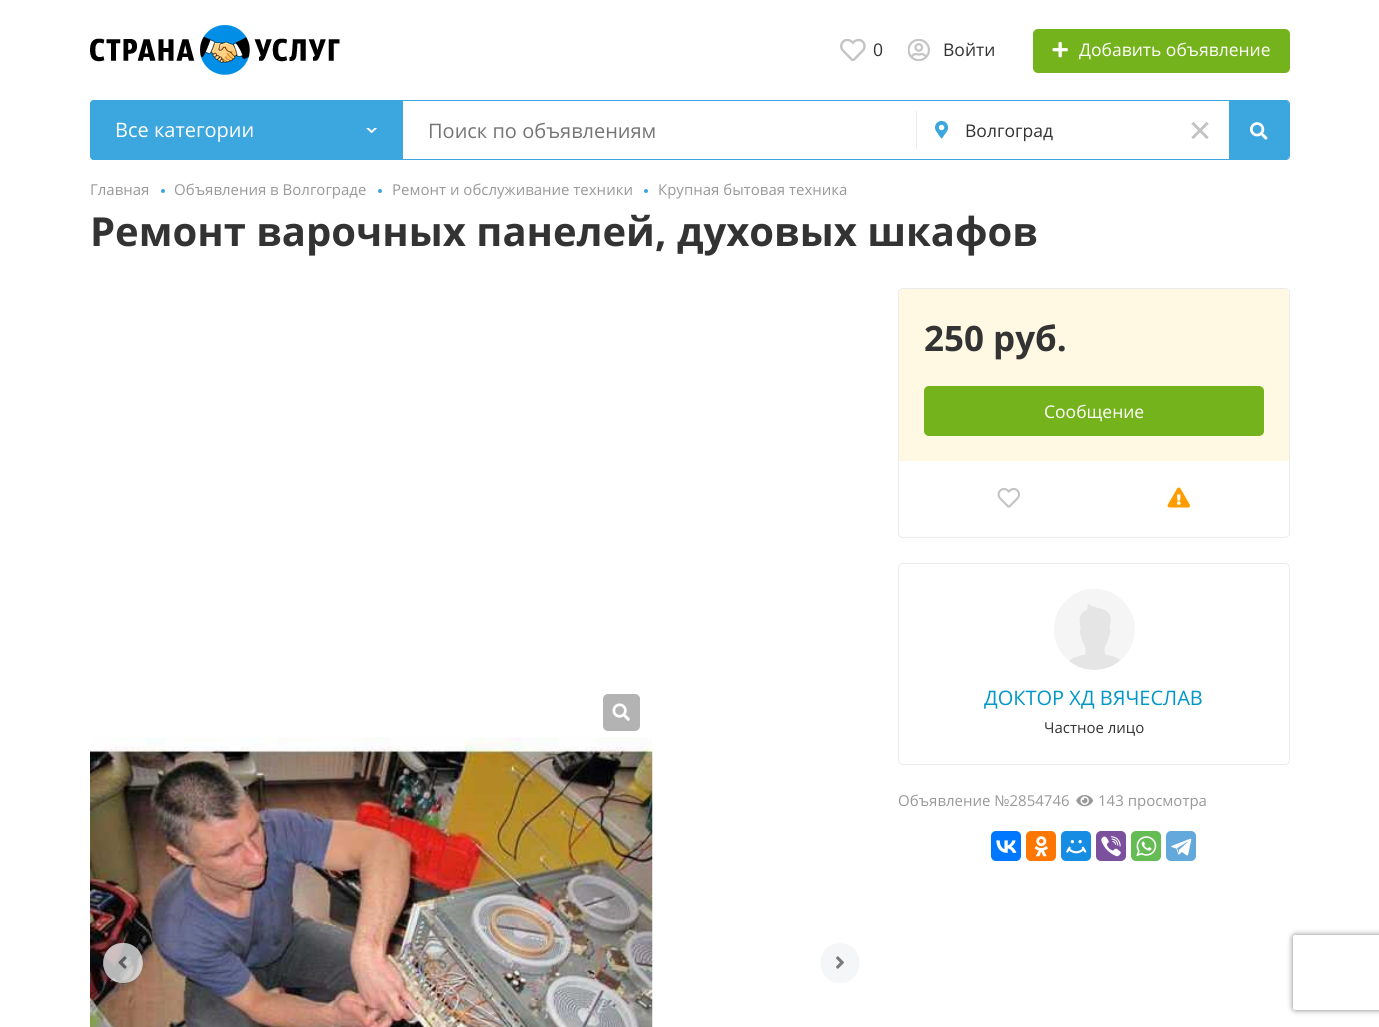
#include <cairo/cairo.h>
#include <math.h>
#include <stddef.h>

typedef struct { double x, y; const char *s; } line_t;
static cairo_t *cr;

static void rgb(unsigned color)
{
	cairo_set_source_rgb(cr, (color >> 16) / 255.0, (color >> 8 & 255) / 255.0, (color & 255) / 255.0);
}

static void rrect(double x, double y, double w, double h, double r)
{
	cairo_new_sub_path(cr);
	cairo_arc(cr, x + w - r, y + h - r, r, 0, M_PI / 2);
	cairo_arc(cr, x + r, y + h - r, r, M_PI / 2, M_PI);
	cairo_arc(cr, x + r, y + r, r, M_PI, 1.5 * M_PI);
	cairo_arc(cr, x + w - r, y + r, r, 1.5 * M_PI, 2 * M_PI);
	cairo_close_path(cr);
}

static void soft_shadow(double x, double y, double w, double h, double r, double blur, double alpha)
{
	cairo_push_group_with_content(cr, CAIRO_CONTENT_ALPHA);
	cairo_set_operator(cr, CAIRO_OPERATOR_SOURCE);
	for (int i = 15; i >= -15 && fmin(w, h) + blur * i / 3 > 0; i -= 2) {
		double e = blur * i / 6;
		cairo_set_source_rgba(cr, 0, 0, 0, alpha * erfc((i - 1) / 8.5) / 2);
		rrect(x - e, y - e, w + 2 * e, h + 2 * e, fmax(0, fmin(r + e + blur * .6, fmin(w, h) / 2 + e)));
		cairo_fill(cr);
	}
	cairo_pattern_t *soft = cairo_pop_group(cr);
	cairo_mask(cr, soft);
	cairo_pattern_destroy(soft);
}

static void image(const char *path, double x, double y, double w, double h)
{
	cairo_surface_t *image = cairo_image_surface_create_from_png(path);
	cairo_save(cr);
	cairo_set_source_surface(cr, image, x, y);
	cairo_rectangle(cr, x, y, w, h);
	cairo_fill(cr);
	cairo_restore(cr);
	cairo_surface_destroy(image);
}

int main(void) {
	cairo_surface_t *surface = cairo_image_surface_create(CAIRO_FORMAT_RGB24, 1379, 1027);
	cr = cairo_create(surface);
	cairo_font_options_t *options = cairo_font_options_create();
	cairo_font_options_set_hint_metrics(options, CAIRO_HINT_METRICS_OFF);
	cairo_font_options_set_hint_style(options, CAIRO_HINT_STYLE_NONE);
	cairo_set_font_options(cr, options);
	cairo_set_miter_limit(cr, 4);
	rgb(0xffffff);
	cairo_paint(cr);
	image("img/1.png", 90, 25, 250, 50);
	image("img/2.png", 840, 39, 26, 22);
	image("img/3.png", 908, 39, 22, 22);
	rgb(0x74b31b);
	rrect(1033, 29, 257, 44, 5);
	cairo_fill(cr);
	image("img/4.png", 1052, 42, 16, 16);
	rrect(90.5, 100.5, 1199, 59, 3.5);
	rgb(0x3ca6df);
	cairo_set_line_width(cr, 1);
	cairo_stroke(cr);
	cairo_new_path(cr);
	cairo_move_to(cr, 94, 100);
	cairo_line_to(cr, 403, 100);
	cairo_line_to(cr, 403, 160);
	cairo_line_to(cr, 94, 160);
	cairo_curve_to(cr, 92, 160, 90, 158, 90, 156);
	cairo_line_to(cr, 90, 104);
	cairo_curve_to(cr, 90, 102, 92, 100, 94, 100);
	cairo_close_path(cr);
	cairo_fill(cr);
	image("img/5.png", 366, 128, 11, 6);
	rgb(0xe8edef);
	cairo_rectangle(cr, 916, 111, 1, 38);
	cairo_fill(cr);
	image("img/6.png", 935, 120, 14, 19);
	image("img/7.png", 1191, 121, 18, 18);
	rgb(0x3ca6df);
	cairo_new_path(cr);
	cairo_move_to(cr, 1229, 100);
	cairo_line_to(cr, 1285, 100);
	cairo_curve_to(cr, 1287, 100, 1289, 102, 1289, 104);
	cairo_line_to(cr, 1289, 156);
	cairo_curve_to(cr, 1289, 158, 1287, 160, 1285, 160);
	cairo_line_to(cr, 1229, 160);
	cairo_close_path(cr);
	cairo_fill(cr);
	image("img/8.png", 1250, 122, 18, 18);
	cairo_arc(cr, 163, 191, 2, 0, 2 * M_PI);
	cairo_fill(cr);
	cairo_arc(cr, 380, 191, 2, 0, 2 * M_PI);
	cairo_fill(cr);
	cairo_arc(cr, 646, 191, 2, 0, 2 * M_PI);
	cairo_fill(cr);
	rrect(898.5, 288.5, 391, 249, 4.5);
	rgb(0xebebeb);
	cairo_stroke(cr);
	rgb(0xfff9e4);
	cairo_new_path(cr);
	cairo_move_to(cr, 904, 289);
	cairo_line_to(cr, 1284, 289);
	cairo_curve_to(cr, 1287, 289, 1289, 291, 1289, 294);
	cairo_line_to(cr, 1289, 461);
	cairo_line_to(cr, 899, 461);
	cairo_line_to(cr, 899, 294);
	cairo_curve_to(cr, 899, 291, 901, 289, 904, 289);
	cairo_close_path(cr);
	cairo_fill(cr);
	rgb(0x74b31b);
	rrect(924, 386, 340, 50, 5);
	cairo_fill(cr);
	image("img/9.png", 997, 488, 23, 20);
	image("img/10.png", 1167, 487, 23, 21);
	rrect(898.5, 563.5, 391, 201, 4.5);
	rgb(0xebebeb);
	cairo_stroke(cr);
	image("img/11.png", 1054, 589, 81, 81);
	image("img/12.png", 1076, 795, 18, 12);
	rgb(0x0077ff);
	rrect(991, 831, 30, 30, 5);
	cairo_fill(cr);
	image("img/13.png", 996, 840, 21, 13);
	rgb(0xff7700);
	rrect(1026, 831, 30, 30, 5);
	cairo_fill(cr);
	image("img/14.png", 1034, 836, 14, 21);
	rgb(0x168de2);
	rrect(1061, 831, 30, 30, 5);
	cairo_fill(cr);
	image("img/15.png", 1066, 840, 21, 14);
	rgb(0x7b519d);
	rrect(1096, 831, 30, 30, 5);
	cairo_fill(cr);
	image("img/16.png", 1101, 836, 20, 21);
	rgb(0x65bc54);
	rrect(1131, 831, 30, 30, 5);
	cairo_fill(cr);
	image("img/17.png", 1136, 836, 21, 21);
	rgb(0x64a9dc);
	rrect(1166, 831, 30, 30, 5);
	cairo_fill(cr);
	image("img/18.png", 1171, 838, 21, 18);
	rgb(0xb3b3b3);
	rrect(603, 694, 37, 37, 5);
	cairo_fill(cr);
	image("img/19.png", 612, 703, 18, 18);
	image("img/20.png", 90, 737, 563, 290);
	cairo_set_source_rgba(cr, 1, 1, 1, 0.5);
	cairo_arc(cr, 123, 963, 20, 0, 2 * M_PI);
	cairo_fill(cr);
	cairo_set_source_rgba(cr, 0.91, 0.929, 0.937, 0.5);
	cairo_new_path(cr);
	cairo_move_to(cr, 123, 943);
	cairo_curve_to(cr, 149, 943, 149, 983, 123, 983);
	cairo_curve_to(cr, 97, 983, 97, 943, 123, 943);
	cairo_close_path(cr);
	cairo_fill(cr);
	image("img/21.png", 118, 956, 9, 13);
	rgb(0xf4f6f7);
	cairo_new_path(cr);
	cairo_move_to(cr, 840, 943);
	cairo_curve_to(cr, 866, 943, 866, 983, 840, 983);
	cairo_curve_to(cr, 814, 983, 814, 943, 840, 943);
	cairo_close_path(cr);
	cairo_fill(cr);
	image("img/22.png", 836, 956, 8, 13);
	cairo_save(cr);
	cairo_set_fill_rule(cr, CAIRO_FILL_RULE_EVEN_ODD);
	cairo_new_path(cr);
	cairo_move_to(cr, 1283, 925);
	cairo_line_to(cr, 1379, 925);
	cairo_line_to(cr, 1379, 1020);
	cairo_line_to(cr, 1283, 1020);
	cairo_close_path(cr);
	cairo_move_to(cr, 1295.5, 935);
	cairo_line_to(cr, 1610.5, 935);
	cairo_curve_to(cr, 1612, 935, 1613, 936, 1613, 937.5);
	cairo_line_to(cr, 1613, 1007.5);
	cairo_curve_to(cr, 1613, 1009, 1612, 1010, 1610.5, 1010);
	cairo_line_to(cr, 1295.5, 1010);
	cairo_curve_to(cr, 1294, 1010, 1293, 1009, 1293, 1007.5);
	cairo_line_to(cr, 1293, 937.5);
	cairo_curve_to(cr, 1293, 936, 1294, 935, 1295.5, 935);
	cairo_close_path(cr);
	cairo_clip(cr);
	rgb(0x808080);
	soft_shadow(1293, 935, 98, 75, 2.5, 3, 1);
	cairo_restore(cr);
	cairo_select_font_face(cr, "Open Sans", CAIRO_FONT_SLANT_NORMAL, CAIRO_FONT_WEIGHT_NORMAL);
	cairo_set_font_size(cr, 17.5);
	rgb(0x333333);
	cairo_move_to(cr, 873, 56);
	cairo_show_text(cr, "0");
	cairo_move_to(cr, 943, 56);
	cairo_show_text(cr, "Войти");
	rgb(0xffffff);
	cairo_move_to(cr, 1079, 56);
	cairo_show_text(cr, "Добавить объявление");
	cairo_set_font_size(cr, 20);
	cairo_move_to(cr, 115, 137);
	cairo_show_text(cr, "Все категории");
	rgb(0x757575);
	cairo_move_to(cr, 428, 138);
	cairo_show_text(cr, "Поиск по объявлениям");
	cairo_set_font_size(cr, 17.5);
	rgb(0x333333);
	cairo_move_to(cr, 965, 137);
	cairo_show_text(cr, "Волгоград");
	cairo_set_font_size(cr, 15);
	rgb(0x999999);
	{
		static const line_t items[] = {
			{90, 195, "Главная"},
			{174, 195, "Объявления в Волгограде"},
			{392, 195, "Ремонт и обслуживание техники"},
			{658, 195, "Крупная бытовая техника"},
		};
		for (size_t i = 0; i < sizeof items / sizeof *items; i++) {
			cairo_move_to(cr, items[i].x, items[i].y);
			cairo_show_text(cr, items[i].s);
		}
	}
	cairo_select_font_face(cr, "Open Sans", CAIRO_FONT_SLANT_NORMAL, CAIRO_FONT_WEIGHT_BOLD);
	cairo_set_font_size(cr, 40);
	rgb(0x333333);
	cairo_move_to(cr, 90, 246);
	cairo_show_text(cr, "Ремонт варочных панелей, духовых шкафов");
	cairo_set_font_size(cr, 35);
	cairo_move_to(cr, 924, 351);
	cairo_show_text(cr, "250 руб.");
	cairo_select_font_face(cr, "Open Sans", CAIRO_FONT_SLANT_NORMAL, CAIRO_FONT_WEIGHT_NORMAL);
	cairo_set_font_size(cr, 17.5);
	rgb(0xffffff);
	cairo_move_to(cr, 1044, 418);
	cairo_show_text(cr, "Сообщение");
	cairo_set_font_size(cr, 20);
	rgb(0x0096c7);
	cairo_move_to(cr, 984, 705);
	cairo_show_text(cr, "ДОКТОР ХД ВЯЧЕСЛАВ");
	cairo_set_font_size(cr, 15);
	rgb(0x333333);
	cairo_move_to(cr, 1044, 733);
	cairo_show_text(cr, "Частное лицо");
	rgb(0x999999);
	cairo_move_to(cr, 898, 806);
	cairo_show_text(cr, "Объявление №2854746");
	cairo_move_to(cr, 1098, 806);
	cairo_show_text(cr, "143 просмотра");
	cairo_surface_write_to_png(surface, "page.png");
	cairo_font_options_destroy(options);
	cairo_destroy(cr);
	cairo_surface_destroy(surface);
	return 0;
}
